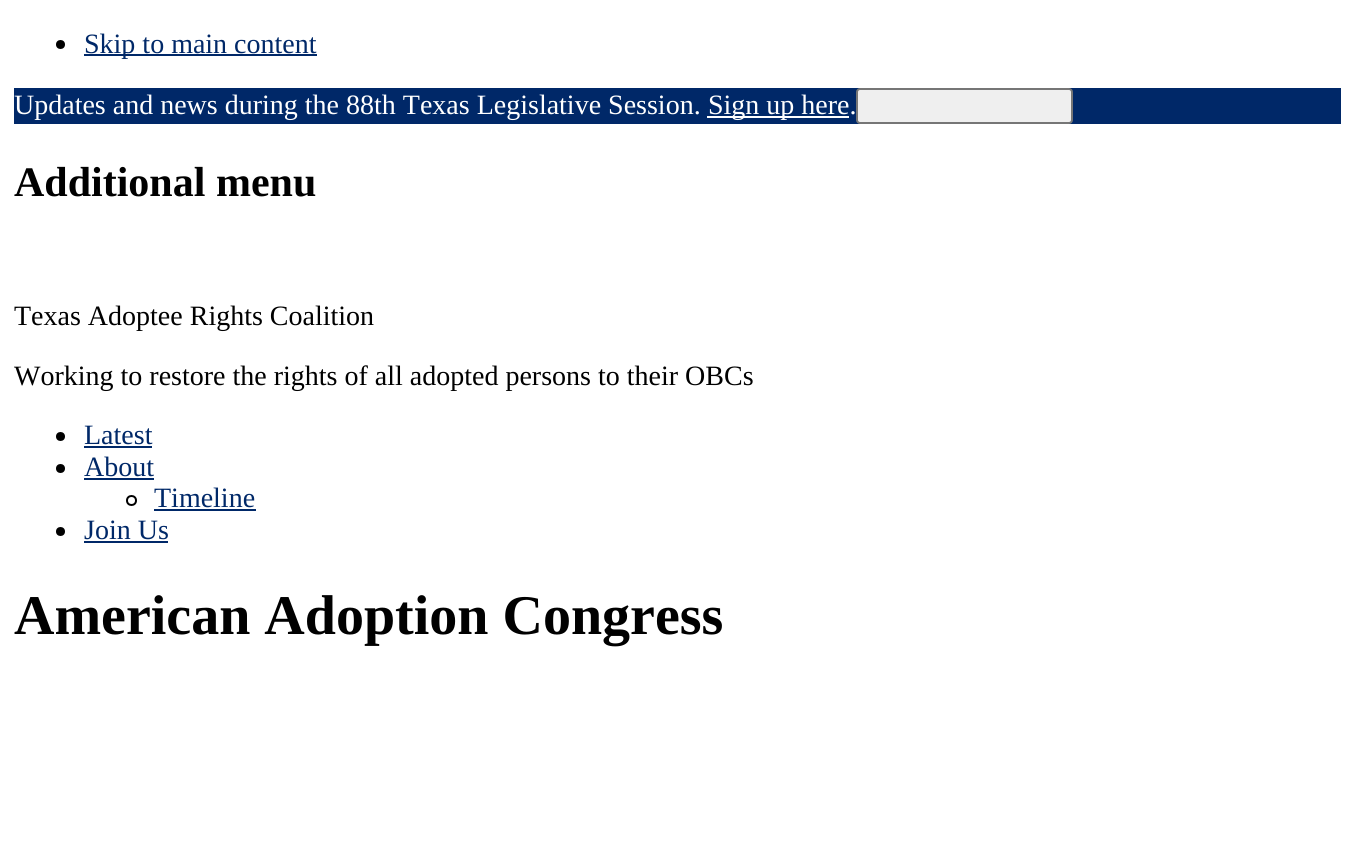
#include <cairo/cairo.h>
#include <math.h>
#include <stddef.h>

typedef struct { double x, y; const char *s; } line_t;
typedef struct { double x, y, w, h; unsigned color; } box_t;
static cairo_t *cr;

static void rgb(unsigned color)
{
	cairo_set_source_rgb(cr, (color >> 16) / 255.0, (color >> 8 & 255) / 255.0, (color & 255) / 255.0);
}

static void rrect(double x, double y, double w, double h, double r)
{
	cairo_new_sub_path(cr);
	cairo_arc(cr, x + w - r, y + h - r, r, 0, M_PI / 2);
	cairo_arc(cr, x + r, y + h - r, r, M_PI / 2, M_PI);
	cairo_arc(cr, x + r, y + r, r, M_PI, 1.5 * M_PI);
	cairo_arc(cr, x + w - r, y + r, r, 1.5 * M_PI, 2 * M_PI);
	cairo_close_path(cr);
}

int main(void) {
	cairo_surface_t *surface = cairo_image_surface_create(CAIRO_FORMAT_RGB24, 1353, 848);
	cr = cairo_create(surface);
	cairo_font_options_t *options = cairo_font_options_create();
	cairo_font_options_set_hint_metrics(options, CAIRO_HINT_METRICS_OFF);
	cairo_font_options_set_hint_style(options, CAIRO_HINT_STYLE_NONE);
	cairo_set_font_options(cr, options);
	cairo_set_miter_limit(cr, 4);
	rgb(0xffffff);
	cairo_paint(cr);
	rgb(0x000000);
	cairo_arc(cr, 60.5, 44.5, 4.5, 0, 2 * M_PI);
	cairo_fill(cr);
	{
		static const box_t items[] = {
			{84, 54, 233, 2, 0x002868},
			{14, 88, 1327, 36, 0x002868},
			{707, 116, 142, 2, 0xffffff},
		};
		for (size_t i = 0; i < sizeof items / sizeof *items; i++) {
			rgb(items[i].color);
			cairo_rectangle(cr, items[i].x, items[i].y, items[i].w, items[i].h);
			cairo_fill(cr);
		}
	}
	rgb(0xefefef);
	rrect(857, 89, 215, 34, 3);
	cairo_fill_preserve(cr);
	rgb(0x767676);
	cairo_stroke(cr);
	rgb(0x000000);
	cairo_arc(cr, 60.5, 436.5, 4.5, 0, 2 * M_PI);
	cairo_fill(cr);
	rgb(0x002868);
	cairo_rectangle(cr, 84, 446, 68, 2);
	cairo_fill(cr);
	rgb(0x000000);
	cairo_arc(cr, 60.5, 468.5, 4.5, 0, 2 * M_PI);
	cairo_fill(cr);
	rgb(0x002868);
	cairo_rectangle(cr, 84, 478, 70, 2);
	cairo_fill(cr);
	cairo_arc(cr, 131.5, 500.5, 4.5, 0, 2 * M_PI);
	rgb(0x000000);
	cairo_stroke(cr);
	rgb(0x002868);
	cairo_rectangle(cr, 154, 509, 102, 2);
	cairo_fill(cr);
	rgb(0x000000);
	cairo_arc(cr, 60.5, 531.5, 4.5, 0, 2 * M_PI);
	cairo_fill(cr);
	rgb(0x002868);
	cairo_rectangle(cr, 84, 541, 84, 2);
	cairo_fill(cr);
	cairo_select_font_face(cr, "Liberation Serif", CAIRO_FONT_SLANT_NORMAL, CAIRO_FONT_WEIGHT_NORMAL);
	cairo_set_font_size(cr, 28);
	cairo_move_to(cr, 84, 53);
	cairo_show_text(cr, "Skip to main content");
	rgb(0xffffff);
	cairo_move_to(cr, 14, 114);
	cairo_show_text(cr, "Updates and news during the 88th Texas Legislative Session.");
	cairo_move_to(cr, 708, 114);
	cairo_show_text(cr, "Sign up here.");
	cairo_select_font_face(cr, "Liberation Serif", CAIRO_FONT_SLANT_NORMAL, CAIRO_FONT_WEIGHT_BOLD);
	cairo_set_font_size(cr, 42);
	rgb(0x000000);
	cairo_move_to(cr, 14, 196);
	cairo_show_text(cr, "Additional menu");
	cairo_select_font_face(cr, "Liberation Serif", CAIRO_FONT_SLANT_NORMAL, CAIRO_FONT_WEIGHT_NORMAL);
	cairo_set_font_size(cr, 28);
	cairo_move_to(cr, 14, 325);
	cairo_show_text(cr, "Texas Adoptee Rights Coalition");
	cairo_move_to(cr, 14, 385);
	cairo_show_text(cr, "Working to restore the rights of all adopted persons to their OBCs");
	rgb(0x002868);
	{
		static const line_t items[] = {
			{84, 444, "Latest"},
			{84, 476, "About"},
			{154, 507, "Timeline"},
			{84, 539, "Join Us"},
		};
		for (size_t i = 0; i < sizeof items / sizeof *items; i++) {
			cairo_move_to(cr, items[i].x, items[i].y);
			cairo_show_text(cr, items[i].s);
		}
	}
	cairo_select_font_face(cr, "Liberation Serif", CAIRO_FONT_SLANT_NORMAL, CAIRO_FONT_WEIGHT_BOLD);
	cairo_set_font_size(cr, 56);
	rgb(0x000000);
	cairo_move_to(cr, 14, 634);
	cairo_show_text(cr, "American Adoption Congress");
	cairo_surface_write_to_png(surface, "page.png");
	cairo_font_options_destroy(options);
	cairo_destroy(cr);
	cairo_surface_destroy(surface);
	return 0;
}
